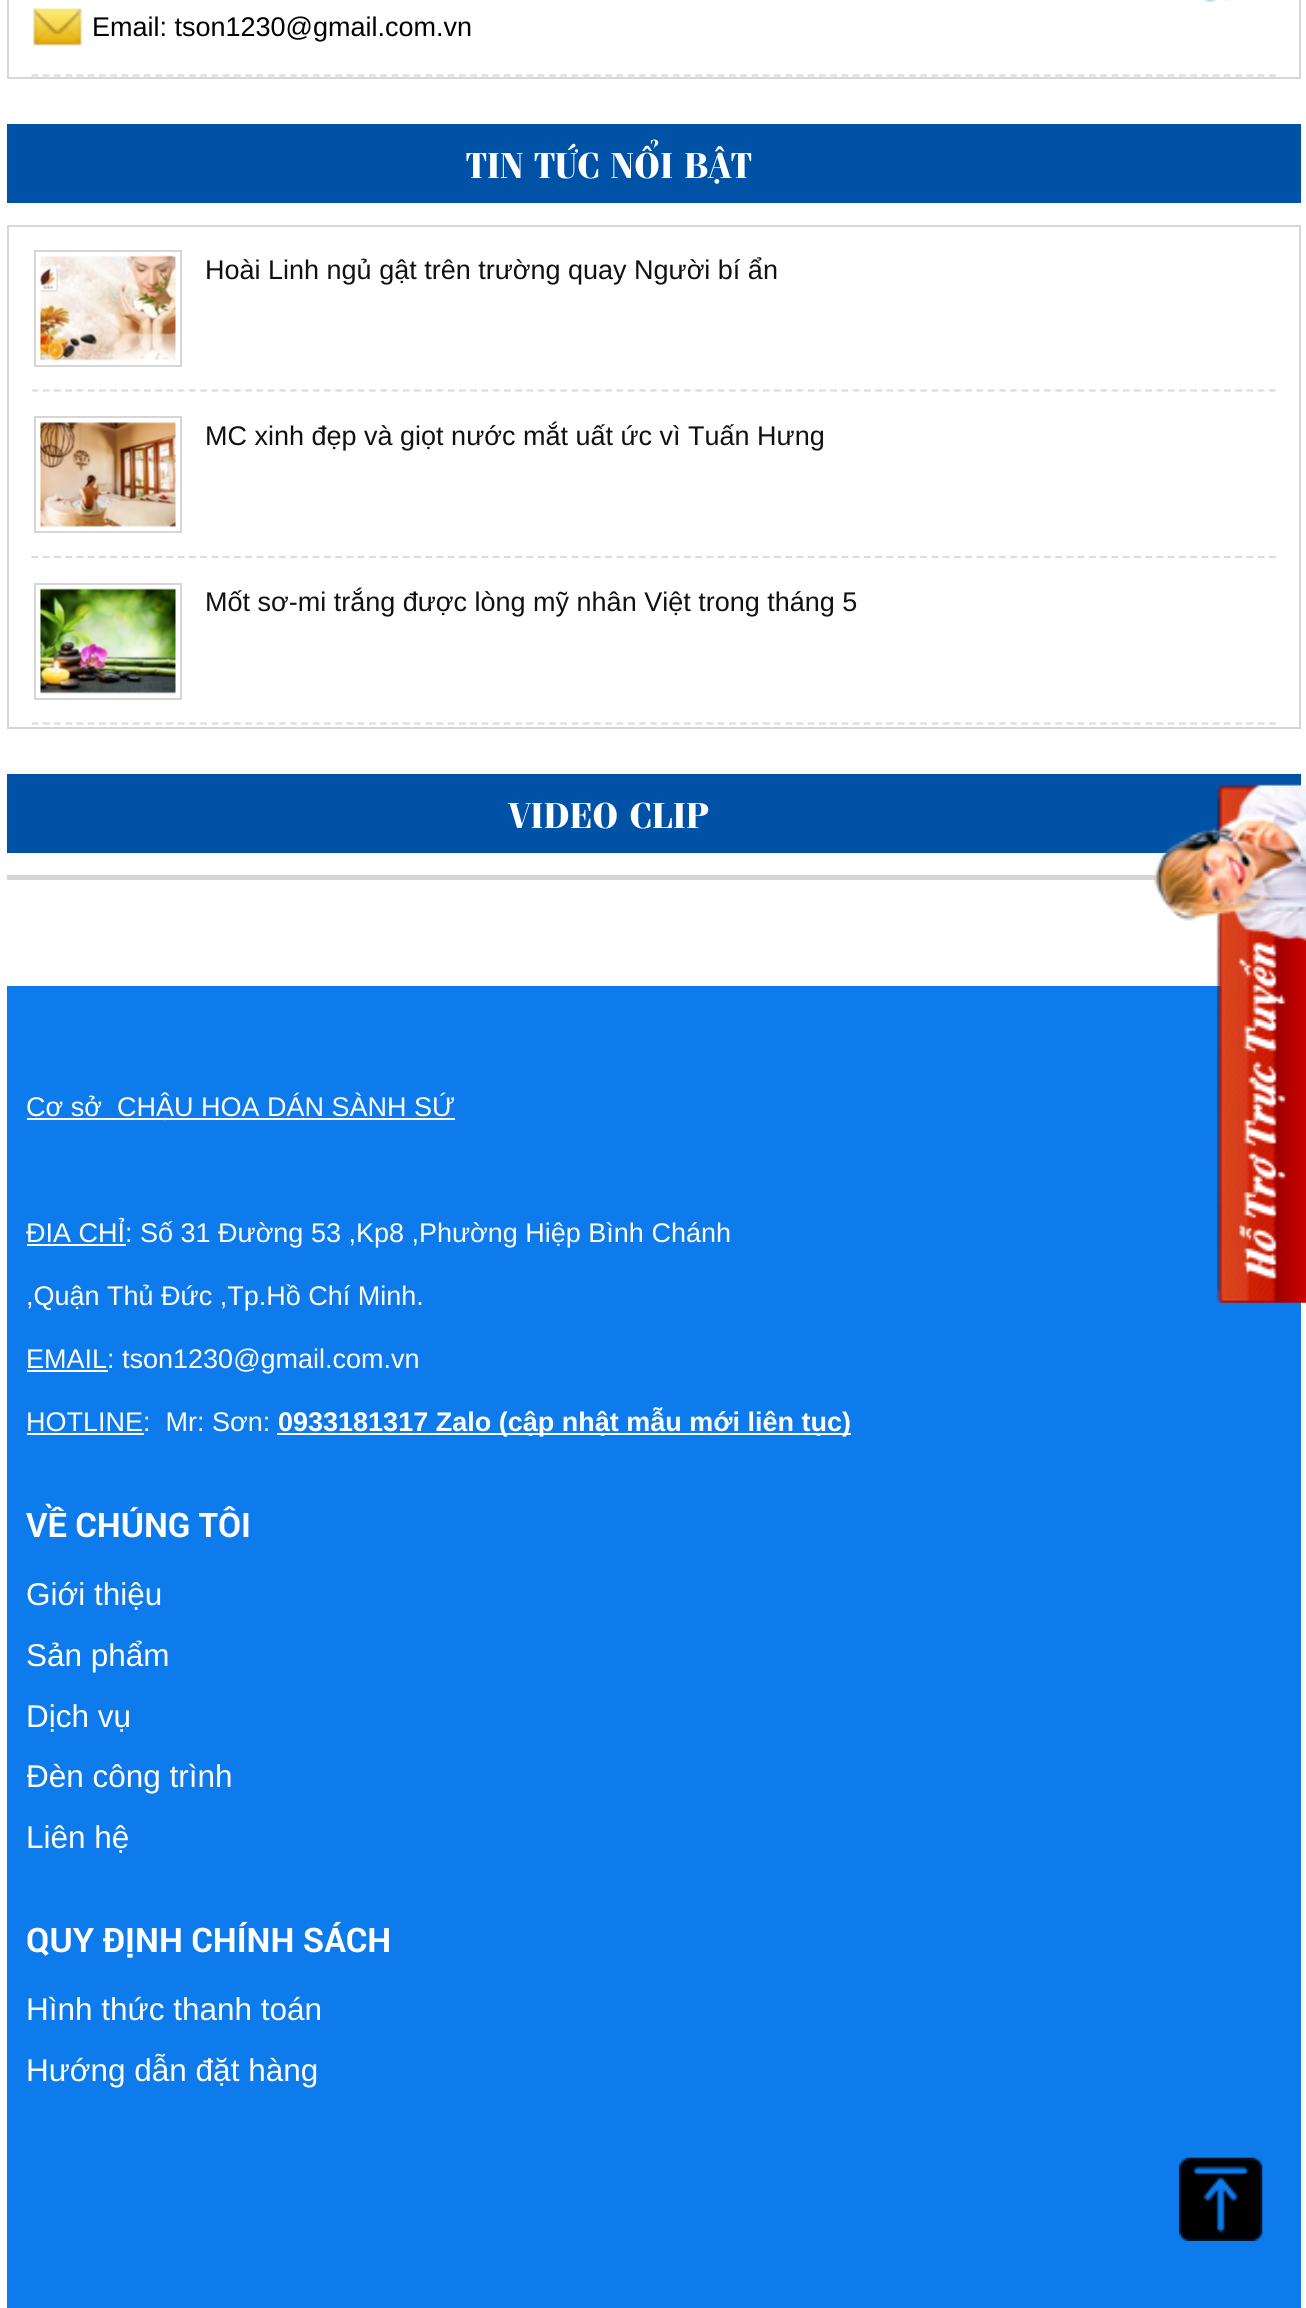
#include <cairo/cairo.h>
#include <math.h>
#include <stddef.h>

typedef struct { double x, y; const char *s; } line_t;
typedef struct { double x, y, w, h; unsigned color; } box_t;
static cairo_t *cr;

static void rgb(unsigned color)
{
	cairo_set_source_rgb(cr, (color >> 16) / 255.0, (color >> 8 & 255) / 255.0, (color & 255) / 255.0);
}

static void image(const char *path, double x, double y, double w, double h)
{
	cairo_surface_t *image = cairo_image_surface_create_from_png(path);
	cairo_save(cr);
	cairo_set_source_surface(cr, image, x, y);
	cairo_rectangle(cr, x, y, w, h);
	cairo_fill(cr);
	cairo_restore(cr);
	cairo_surface_destroy(image);
}

int main(void) {
	cairo_surface_t *surface = cairo_image_surface_create(CAIRO_FORMAT_RGB24, 1306, 2308);
	cr = cairo_create(surface);
	cairo_font_options_t *options = cairo_font_options_create();
	cairo_font_options_set_hint_metrics(options, CAIRO_HINT_METRICS_OFF);
	cairo_font_options_set_hint_style(options, CAIRO_HINT_STYLE_NONE);
	cairo_set_font_options(cr, options);
	cairo_set_miter_limit(cr, 4);
	rgb(0xffffff);
	cairo_paint(cr);
	cairo_rectangle(cr, 8, -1, 1292, 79);
	rgb(0xd6d6d6);
	cairo_stroke(cr);
	cairo_new_path(cr);
	cairo_move_to(cr, 31.5, 75.5);
	cairo_line_to(cr, 1276, 75.5);
	rgb(0xdddddd);
	cairo_set_line_width(cr, 2.2);
	cairo_set_dash(cr, (double[]){6.75, 4.5}, 2, 0);
	cairo_stroke(cr);
	image("img/1.png", 1203, 0, 28, 2);
	image("img/2.png", 33, 8, 49, 38);
	rgb(0x0052a6);
	cairo_rectangle(cr, 7, 124, 1294, 79);
	cairo_fill(cr);
	cairo_rectangle(cr, 8, 226, 1292, 502);
	rgb(0xd6d6d6);
	cairo_set_line_width(cr, 2);
	cairo_set_dash(cr, NULL, 0, 0);
	cairo_stroke(cr);
	cairo_save(cr);
	cairo_rectangle(cr, 32, 227, 1244, 500);
	cairo_clip(cr);
	cairo_new_path(cr);
	cairo_move_to(cr, 31.5, 390.5);
	cairo_line_to(cr, 1276, 390.5);
	rgb(0xdddddd);
	cairo_set_line_width(cr, 2.2);
	cairo_set_dash(cr, (double[]){6.75, 4.5}, 2, 0);
	cairo_stroke(cr);
	cairo_restore(cr);
	cairo_rectangle(cr, 35, 251, 146, 115);
	cairo_stroke(cr);
	image("img/3.png", 40, 255, 136, 106);
	cairo_new_path(cr);
	cairo_move_to(cr, 31.5, 557);
	cairo_line_to(cr, 1276, 557);
	rgb(0xdddddd);
	cairo_set_line_width(cr, 2.2);
	cairo_set_dash(cr, (double[]){6.75, 4.5}, 2, 0);
	cairo_stroke(cr);
	cairo_rectangle(cr, 35, 417, 146, 115);
	rgb(0xd6d6d6);
	cairo_set_line_width(cr, 2);
	cairo_set_dash(cr, NULL, 0, 0);
	cairo_stroke(cr);
	image("img/4.png", 40, 422, 136, 105);
	cairo_save(cr);
	cairo_rectangle(cr, 32, 227, 1244, 500);
	cairo_clip(cr);
	cairo_new_path(cr);
	cairo_move_to(cr, 31.5, 723.5);
	cairo_line_to(cr, 1276, 723.5);
	rgb(0xdddddd);
	cairo_set_line_width(cr, 2.2);
	cairo_set_dash(cr, (double[]){6.75, 4.5}, 2, 0);
	cairo_stroke(cr);
	cairo_restore(cr);
	cairo_rectangle(cr, 35, 584, 146, 115);
	cairo_stroke(cr);
	image("img/5.png", 40, 588, 136, 106);
	{
		static const box_t items[] = {
			{7, 774, 1294, 79, 0x0052a6},
			{7, 875, 1153, 5, 0xd6d6d6},
			{7, 986, 1294, 1322, 0x0d7bec},
			{27, 1118, 428, 2, 0xffffff},
			{27, 1244, 99, 2, 0xffffff},
			{27, 1370, 81, 2, 0xffffff},
			{27, 1433, 117, 2, 0xffffff},
			{277, 1433, 574, 2, 0xffffff},
		};
		for (size_t i = 0; i < sizeof items / sizeof *items; i++) {
			rgb(items[i].color);
			cairo_rectangle(cr, items[i].x, items[i].y, items[i].w, items[i].h);
			cairo_fill(cr);
		}
	}
	image("img/6.png", 1154, 784, 152, 519);
	image("img/7.png", 1179, 2157, 84, 84);
	cairo_select_font_face(cr, "Liberation Sans", CAIRO_FONT_SLANT_NORMAL, CAIRO_FONT_WEIGHT_NORMAL);
	cairo_set_font_size(cr, 27);
	rgb(0x000000);
	cairo_move_to(cr, 92, 36);
	cairo_show_text(cr, "Email: tson1230@gmail.com.vn");
	cairo_select_font_face(cr, "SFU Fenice", CAIRO_FONT_SLANT_NORMAL, CAIRO_FONT_WEIGHT_BOLD);
	cairo_set_font_size(cr, 36);
	rgb(0xffffff);
	cairo_move_to(cr, 466, 178);
	cairo_show_text(cr, "TIN TỨC NỔI BẬT");
	cairo_select_font_face(cr, "Liberation Sans", CAIRO_FONT_SLANT_NORMAL, CAIRO_FONT_WEIGHT_NORMAL);
	cairo_set_font_size(cr, 27);
	rgb(0x111111);
	{
		static const line_t items[] = {
			{205, 279, "Hoài Linh ngủ gật trên trường quay Người bí ẩn"},
			{205, 445, "MC xinh đẹp và giọt nước mắt uất ức vì Tuấn Hưng"},
			{205, 611, "Mốt sơ-mi trắng được lòng mỹ nhân Việt trong tháng 5"},
		};
		for (size_t i = 0; i < sizeof items / sizeof *items; i++) {
			cairo_move_to(cr, items[i].x, items[i].y);
			cairo_show_text(cr, items[i].s);
		}
	}
	cairo_select_font_face(cr, "SFU Fenice", CAIRO_FONT_SLANT_NORMAL, CAIRO_FONT_WEIGHT_BOLD);
	cairo_set_font_size(cr, 36);
	rgb(0xffffff);
	cairo_move_to(cr, 509, 828);
	cairo_show_text(cr, "VIDEO CLIP");
	cairo_select_font_face(cr, "Liberation Sans", CAIRO_FONT_SLANT_NORMAL, CAIRO_FONT_WEIGHT_NORMAL);
	cairo_set_font_size(cr, 27);
	{
		static const line_t items[] = {
			{26, 1116, "Cơ sở  CHẬU HOA DÁN SÀNH SỨ"},
			{26, 1242, "ĐỊA CHỈ: Số 31 Đường 53 ,Kp8 ,Phường Hiệp Bình Chánh"},
			{26, 1305, ",Quận Thủ Đức ,Tp.Hồ Chí Minh."},
			{26, 1368, "EMAIL: tson1230@gmail.com.vn"},
			{26, 1431, "HOTLINE:  Mr: Sơn:"},
		};
		for (size_t i = 0; i < sizeof items / sizeof *items; i++) {
			cairo_move_to(cr, items[i].x, items[i].y);
			cairo_show_text(cr, items[i].s);
		}
	}
	cairo_select_font_face(cr, "Liberation Sans", CAIRO_FONT_SLANT_NORMAL, CAIRO_FONT_WEIGHT_BOLD);
	cairo_move_to(cr, 278, 1431);
	cairo_show_text(cr, "0933181317 Zalo (cập nhật mẫu mới liên tục)");
	cairo_select_font_face(cr, "Roboto", CAIRO_FONT_SLANT_NORMAL, CAIRO_FONT_WEIGHT_BOLD);
	cairo_set_font_size(cr, 33.75);
	cairo_move_to(cr, 26, 1537);
	cairo_show_text(cr, "VỀ CHÚNG TÔI");
	cairo_select_font_face(cr, "Liberation Sans", CAIRO_FONT_SLANT_NORMAL, CAIRO_FONT_WEIGHT_NORMAL);
	cairo_set_font_size(cr, 31.5);
	{
		static const line_t items[] = {
			{26, 1605, "Giới thiệu"},
			{26, 1666, "Sản phẩm"},
			{26, 1727, "Dịch vụ"},
		};
		for (size_t i = 0; i < sizeof items / sizeof *items; i++) {
			cairo_move_to(cr, items[i].x, items[i].y);
			cairo_show_text(cr, items[i].s);
		}
	}
	cairo_save(cr);
	cairo_rectangle(cr, 27, 1746, 1253, 61);
	cairo_clip(cr);
	cairo_move_to(cr, 26, 1787);
	cairo_show_text(cr, "Đèn công trình");
	cairo_restore(cr);
	cairo_move_to(cr, 26, 1848);
	cairo_show_text(cr, "Liên hệ");
	cairo_select_font_face(cr, "Roboto", CAIRO_FONT_SLANT_NORMAL, CAIRO_FONT_WEIGHT_BOLD);
	cairo_set_font_size(cr, 33.75);
	cairo_move_to(cr, 26, 1952);
	cairo_show_text(cr, "QUY ĐỊNH CHÍNH SÁCH");
	cairo_select_font_face(cr, "Liberation Sans", CAIRO_FONT_SLANT_NORMAL, CAIRO_FONT_WEIGHT_NORMAL);
	cairo_set_font_size(cr, 31.5);
	cairo_move_to(cr, 26, 2020);
	cairo_show_text(cr, "Hình thức thanh toán");
	cairo_move_to(cr, 26, 2081);
	cairo_show_text(cr, "Hướng dẫn đặt hàng");
	cairo_surface_write_to_png(surface, "page.png");
	cairo_font_options_destroy(options);
	cairo_destroy(cr);
	cairo_surface_destroy(surface);
	return 0;
}
